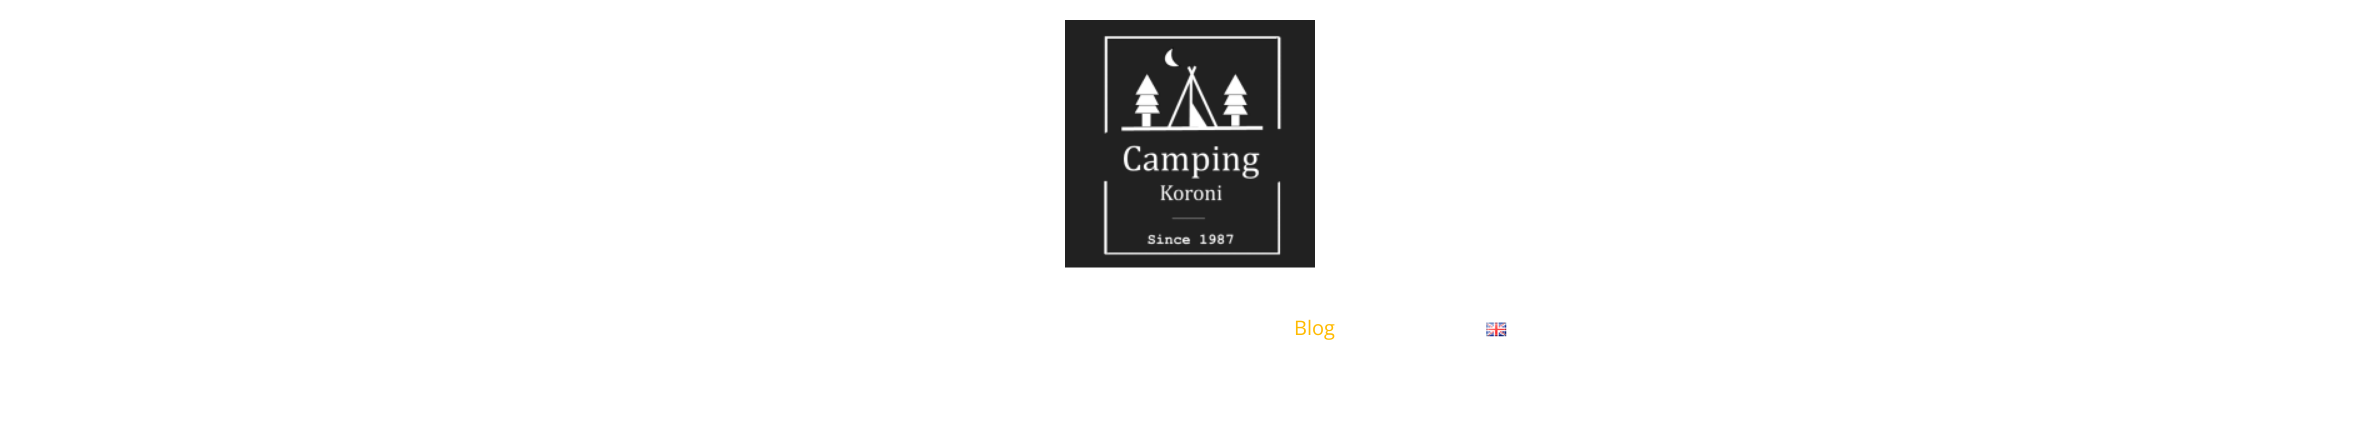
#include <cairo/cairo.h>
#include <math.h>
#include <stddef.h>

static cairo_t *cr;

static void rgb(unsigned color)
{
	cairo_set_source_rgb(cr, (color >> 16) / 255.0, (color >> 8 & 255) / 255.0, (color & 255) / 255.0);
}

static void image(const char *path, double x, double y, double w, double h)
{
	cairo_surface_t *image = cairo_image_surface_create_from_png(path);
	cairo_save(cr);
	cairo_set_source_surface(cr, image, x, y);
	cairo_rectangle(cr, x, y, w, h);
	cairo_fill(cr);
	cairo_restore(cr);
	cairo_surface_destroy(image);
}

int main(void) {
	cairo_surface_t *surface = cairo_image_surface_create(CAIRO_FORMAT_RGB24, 2380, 428);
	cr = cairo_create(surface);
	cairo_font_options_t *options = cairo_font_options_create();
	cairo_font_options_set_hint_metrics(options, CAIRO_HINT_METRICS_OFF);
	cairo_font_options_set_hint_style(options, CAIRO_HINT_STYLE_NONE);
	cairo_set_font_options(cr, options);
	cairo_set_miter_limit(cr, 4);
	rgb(0xffffff);
	cairo_paint(cr);
	image("img/1.png", 1065, 20, 250, 248);
	image("img/2.png", 1486, 322, 21, 15);
	cairo_select_font_face(cr, "Open Sans", CAIRO_FONT_SLANT_NORMAL, CAIRO_FONT_WEIGHT_NORMAL);
	cairo_set_font_size(cr, 20);
	rgb(0xffba00);
	cairo_move_to(cr, 1294, 335);
	cairo_show_text(cr, "Blog");
	cairo_surface_write_to_png(surface, "page.png");
	cairo_font_options_destroy(options);
	cairo_destroy(cr);
	cairo_surface_destroy(surface);
	return 0;
}
